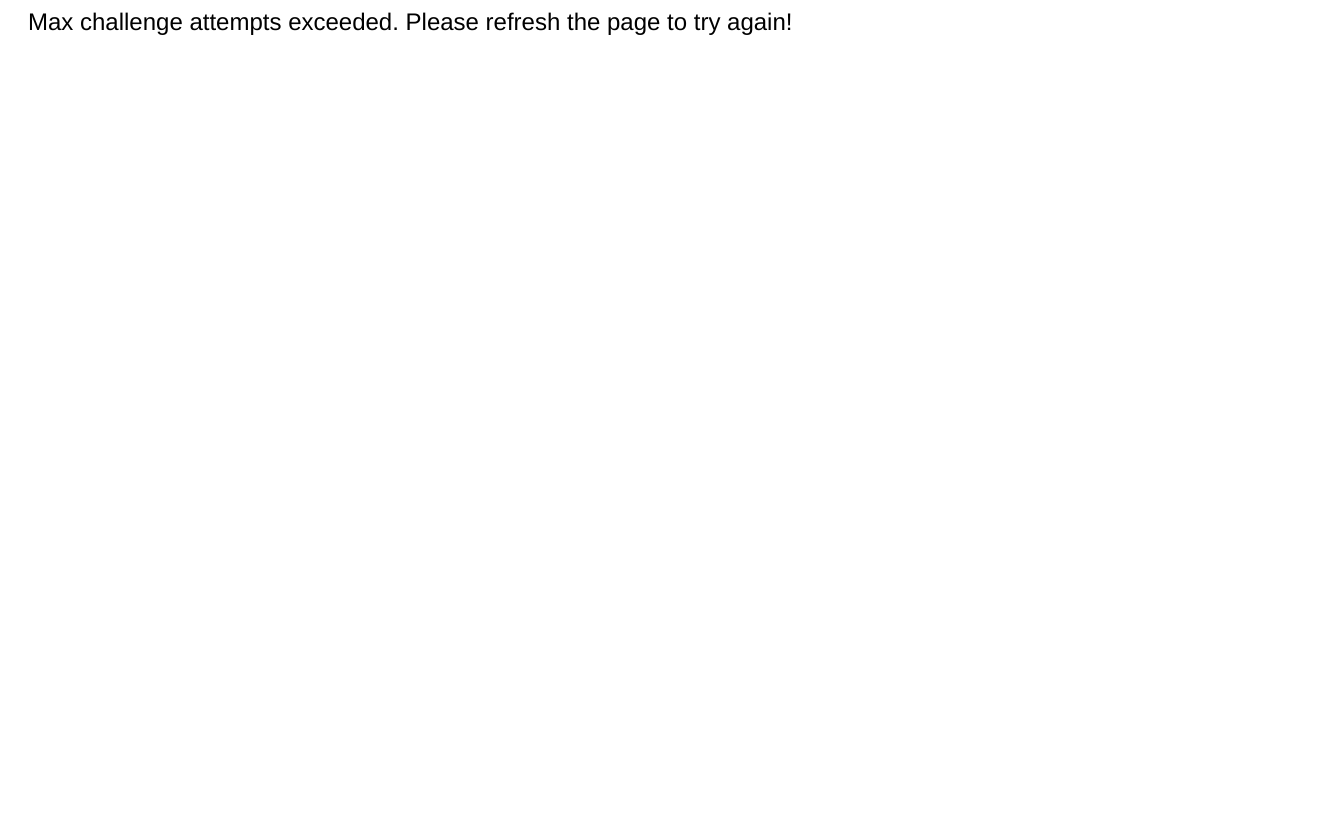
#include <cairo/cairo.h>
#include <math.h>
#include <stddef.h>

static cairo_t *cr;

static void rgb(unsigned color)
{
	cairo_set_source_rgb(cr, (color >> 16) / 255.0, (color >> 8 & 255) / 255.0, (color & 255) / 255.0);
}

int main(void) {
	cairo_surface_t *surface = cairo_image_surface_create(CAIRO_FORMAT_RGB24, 1334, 839);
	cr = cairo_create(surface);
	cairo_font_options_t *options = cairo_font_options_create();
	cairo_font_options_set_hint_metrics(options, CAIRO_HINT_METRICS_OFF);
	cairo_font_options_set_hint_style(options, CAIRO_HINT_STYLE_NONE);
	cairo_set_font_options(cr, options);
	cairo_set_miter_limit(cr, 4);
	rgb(0xffffff);
	cairo_paint(cr);
	cairo_select_font_face(cr, "Liberation Sans", CAIRO_FONT_SLANT_NORMAL, CAIRO_FONT_WEIGHT_NORMAL);
	cairo_set_font_size(cr, 24);
	rgb(0x000000);
	cairo_move_to(cr, 28, 30);
	cairo_show_text(cr, "Max challenge attempts exceeded. Please refresh the page to try again!");
	cairo_surface_write_to_png(surface, "page.png");
	cairo_font_options_destroy(options);
	cairo_destroy(cr);
	cairo_surface_destroy(surface);
	return 0;
}
